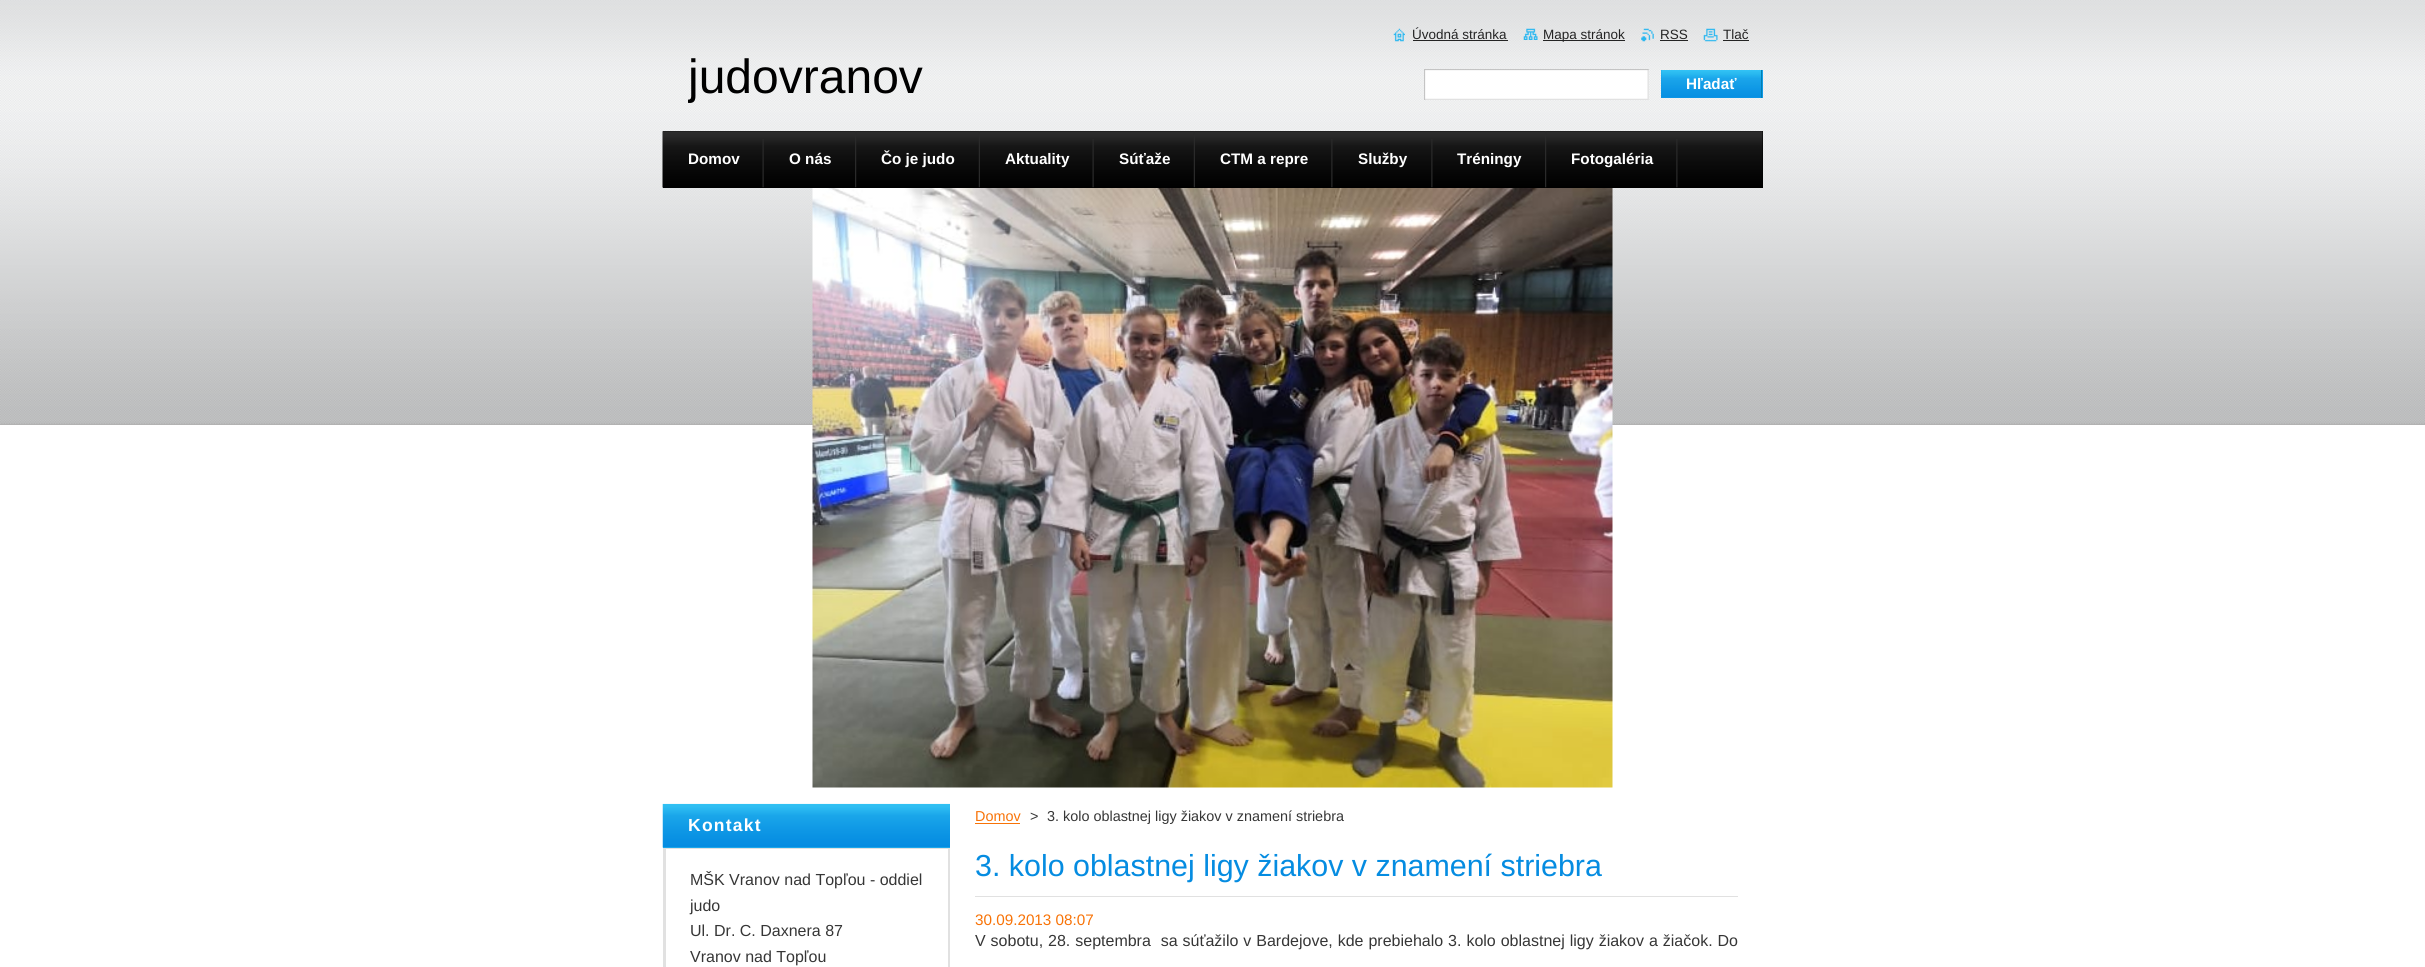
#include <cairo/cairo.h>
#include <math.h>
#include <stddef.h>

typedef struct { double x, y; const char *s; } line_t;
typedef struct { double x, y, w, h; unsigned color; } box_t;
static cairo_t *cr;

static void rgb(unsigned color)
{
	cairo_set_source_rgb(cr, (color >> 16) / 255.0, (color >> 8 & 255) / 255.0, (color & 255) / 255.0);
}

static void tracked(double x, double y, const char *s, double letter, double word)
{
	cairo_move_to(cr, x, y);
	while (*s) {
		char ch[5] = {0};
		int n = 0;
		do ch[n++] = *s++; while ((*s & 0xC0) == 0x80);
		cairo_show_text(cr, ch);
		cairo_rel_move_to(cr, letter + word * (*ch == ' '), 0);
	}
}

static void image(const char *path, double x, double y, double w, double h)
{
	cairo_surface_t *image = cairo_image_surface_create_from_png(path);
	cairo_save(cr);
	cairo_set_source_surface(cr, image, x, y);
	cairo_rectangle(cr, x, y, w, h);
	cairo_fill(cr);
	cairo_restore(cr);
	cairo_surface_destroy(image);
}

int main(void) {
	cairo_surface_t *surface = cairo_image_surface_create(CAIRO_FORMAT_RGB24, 2425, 967);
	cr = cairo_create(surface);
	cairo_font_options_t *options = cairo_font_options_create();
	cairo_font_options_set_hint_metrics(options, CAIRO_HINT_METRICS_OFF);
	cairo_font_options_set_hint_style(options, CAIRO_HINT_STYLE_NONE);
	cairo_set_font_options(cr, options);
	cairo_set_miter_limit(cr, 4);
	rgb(0xffffff);
	cairo_paint(cr);
	image("img/1.png", 0, 0, 2425, 425);
	image("img/2.png", 1393, 28, 12, 14);
	rgb(0x242424);
	cairo_rectangle(cr, 1413, 40, 95, 1);
	cairo_fill(cr);
	image("img/3.png", 1523, 28, 15, 12);
	cairo_rectangle(cr, 1543, 40, 82, 1);
	cairo_fill(cr);
	image("img/4.png", 1641, 28, 13, 14);
	cairo_rectangle(cr, 1660, 40, 28, 1);
	cairo_fill(cr);
	image("img/5.png", 1703, 28, 15, 14);
	cairo_rectangle(cr, 1723, 40, 26, 1);
	cairo_fill(cr);
	image("img/6.png", 1424, 69, 225, 31);
	rgb(0x119ae6);
	cairo_rectangle(cr, 1661, 70, 102, 28);
	cairo_fill(cr);
	image("img/7.png", 1661, 70, 102, 28);
	rgb(0x007fb2);
	cairo_rectangle(cr, 1761, 70, 1, 28);
	cairo_fill(cr);
	rgb(0x000000);
	cairo_rectangle(cr, 663, 131, 1100, 57);
	cairo_fill(cr);
	image("img/8.png", 662, 131, 1101, 57);
	image("img/9.png", 762, 139, 2, 49);
	image("img/10.png", 855, 131, 2, 57);
	image("img/11.png", 978, 131, 2, 57);
	image("img/9.png", 1092, 139, 2, 49);
	image("img/11.png", 1193, 131, 2, 57);
	image("img/12.png", 1331, 139, 2, 49);
	image("img/12.png", 1431, 139, 2, 49);
	image("img/10.png", 1545, 131, 2, 57);
	image("img/12.png", 1676, 139, 2, 49);
	image("img/13.png", 812, 188, 801, 600);
	rgb(0x31c1f3);
	cairo_rectangle(cr, 663, 847, 287, 1);
	cairo_fill(cr);
	image("img/14.png", 662, 803, 288, 45);
	{
		static const box_t items[] = {
			{663, 848, 287, 1, 0xe1e1e1},
			{948, 849, 2, 118, 0xe1e1e1},
			{663, 849, 3, 118, 0xe1e1e1},
			{975, 823, 45, 1, 0xf87307},
			{975, 896, 763, 1, 0xe1e1e1},
		};
		for (size_t i = 0; i < sizeof items / sizeof *items; i++) {
			rgb(items[i].color);
			cairo_rectangle(cr, items[i].x, items[i].y, items[i].w, items[i].h);
			cairo_fill(cr);
		}
	}
	cairo_select_font_face(cr, "Liberation Sans", CAIRO_FONT_SLANT_NORMAL, CAIRO_FONT_WEIGHT_NORMAL);
	cairo_set_font_size(cr, 13.5);
	rgb(0x242424);
	{
		static const line_t items[] = {
			{1412, 39, "Úvodná stránka"},
			{1543, 39, "Mapa stránok"},
			{1660, 39, "RSS"},
			{1723, 39, "Tlač"},
		};
		for (size_t i = 0; i < sizeof items / sizeof *items; i++) {
			cairo_move_to(cr, items[i].x, items[i].y);
			cairo_show_text(cr, items[i].s);
		}
	}
	cairo_save(cr);
	cairo_rectangle(cr, 688, 38, 625, 93);
	cairo_clip(cr);
	cairo_set_font_size(cr, 48);
	rgb(0x000000);
	cairo_move_to(cr, 688, 93);
	cairo_show_text(cr, "judovranov");
	cairo_restore(cr);
	cairo_select_font_face(cr, "Liberation Sans", CAIRO_FONT_SLANT_NORMAL, CAIRO_FONT_WEIGHT_BOLD);
	cairo_set_font_size(cr, 15.25);
	rgb(0xffffff);
	{
		static const line_t items[] = {
			{1686, 89, "Hľadať"},
			{688, 164, "Domov"},
			{789, 164, "O nás"},
			{881, 164, "Čo je judo"},
			{1005, 164, "Aktuality"},
			{1119, 164, "Súťaže"},
			{1220, 164, "CTM a repre"},
			{1358, 164, "Služby"},
			{1457, 164, "Tréningy"},
			{1571, 164, "Fotogaléria"},
		};
		for (size_t i = 0; i < sizeof items / sizeof *items; i++) {
			cairo_move_to(cr, items[i].x, items[i].y);
			cairo_show_text(cr, items[i].s);
		}
	}
	cairo_set_font_size(cr, 17.5);
	tracked(688, 831, "Kontakt", 1.25, 0);
	cairo_select_font_face(cr, "Liberation Sans", CAIRO_FONT_SLANT_NORMAL, CAIRO_FONT_WEIGHT_NORMAL);
	cairo_set_font_size(cr, 16);
	rgb(0x363636);
	{
		static const line_t items[] = {
			{690, 885, "MŠK Vranov nad Topľou - oddiel"},
			{690, 911, "judo"},
			{690, 936, "Ul. Dr. C. Daxnera 87"},
			{690, 962, "Vranov nad Topľou"},
		};
		for (size_t i = 0; i < sizeof items / sizeof *items; i++) {
			cairo_move_to(cr, items[i].x, items[i].y);
			cairo_show_text(cr, items[i].s);
		}
	}
	cairo_set_font_size(cr, 14.4);
	rgb(0xf87307);
	cairo_move_to(cr, 975, 821);
	cairo_show_text(cr, "Domov");
	rgb(0x363636);
	cairo_move_to(cr, 1030, 821);
	cairo_show_text(cr, ">");
	cairo_move_to(cr, 1047, 821);
	cairo_show_text(cr, "3. kolo oblastnej ligy žiakov v znamení striebra");
	cairo_set_font_size(cr, 30.4);
	rgb(0x058ce1);
	cairo_move_to(cr, 975, 876);
	cairo_show_text(cr, "3. kolo oblastnej ligy žiakov v znamení striebra");
	cairo_set_font_size(cr, 15.25);
	rgb(0xf87307);
	cairo_move_to(cr, 975, 925);
	cairo_show_text(cr, "30.09.2013 08:07");
	cairo_set_font_size(cr, 16);
	rgb(0x363636);
	tracked(975, 946, "V sobotu, 28. septembra  sa súťažilo v Bardejove, kde prebiehalo 3. kolo oblastnej ligy žiakov a žiačok. Do", 0, 0.5);
	cairo_surface_write_to_png(surface, "page.png");
	cairo_font_options_destroy(options);
	cairo_destroy(cr);
	cairo_surface_destroy(surface);
	return 0;
}
